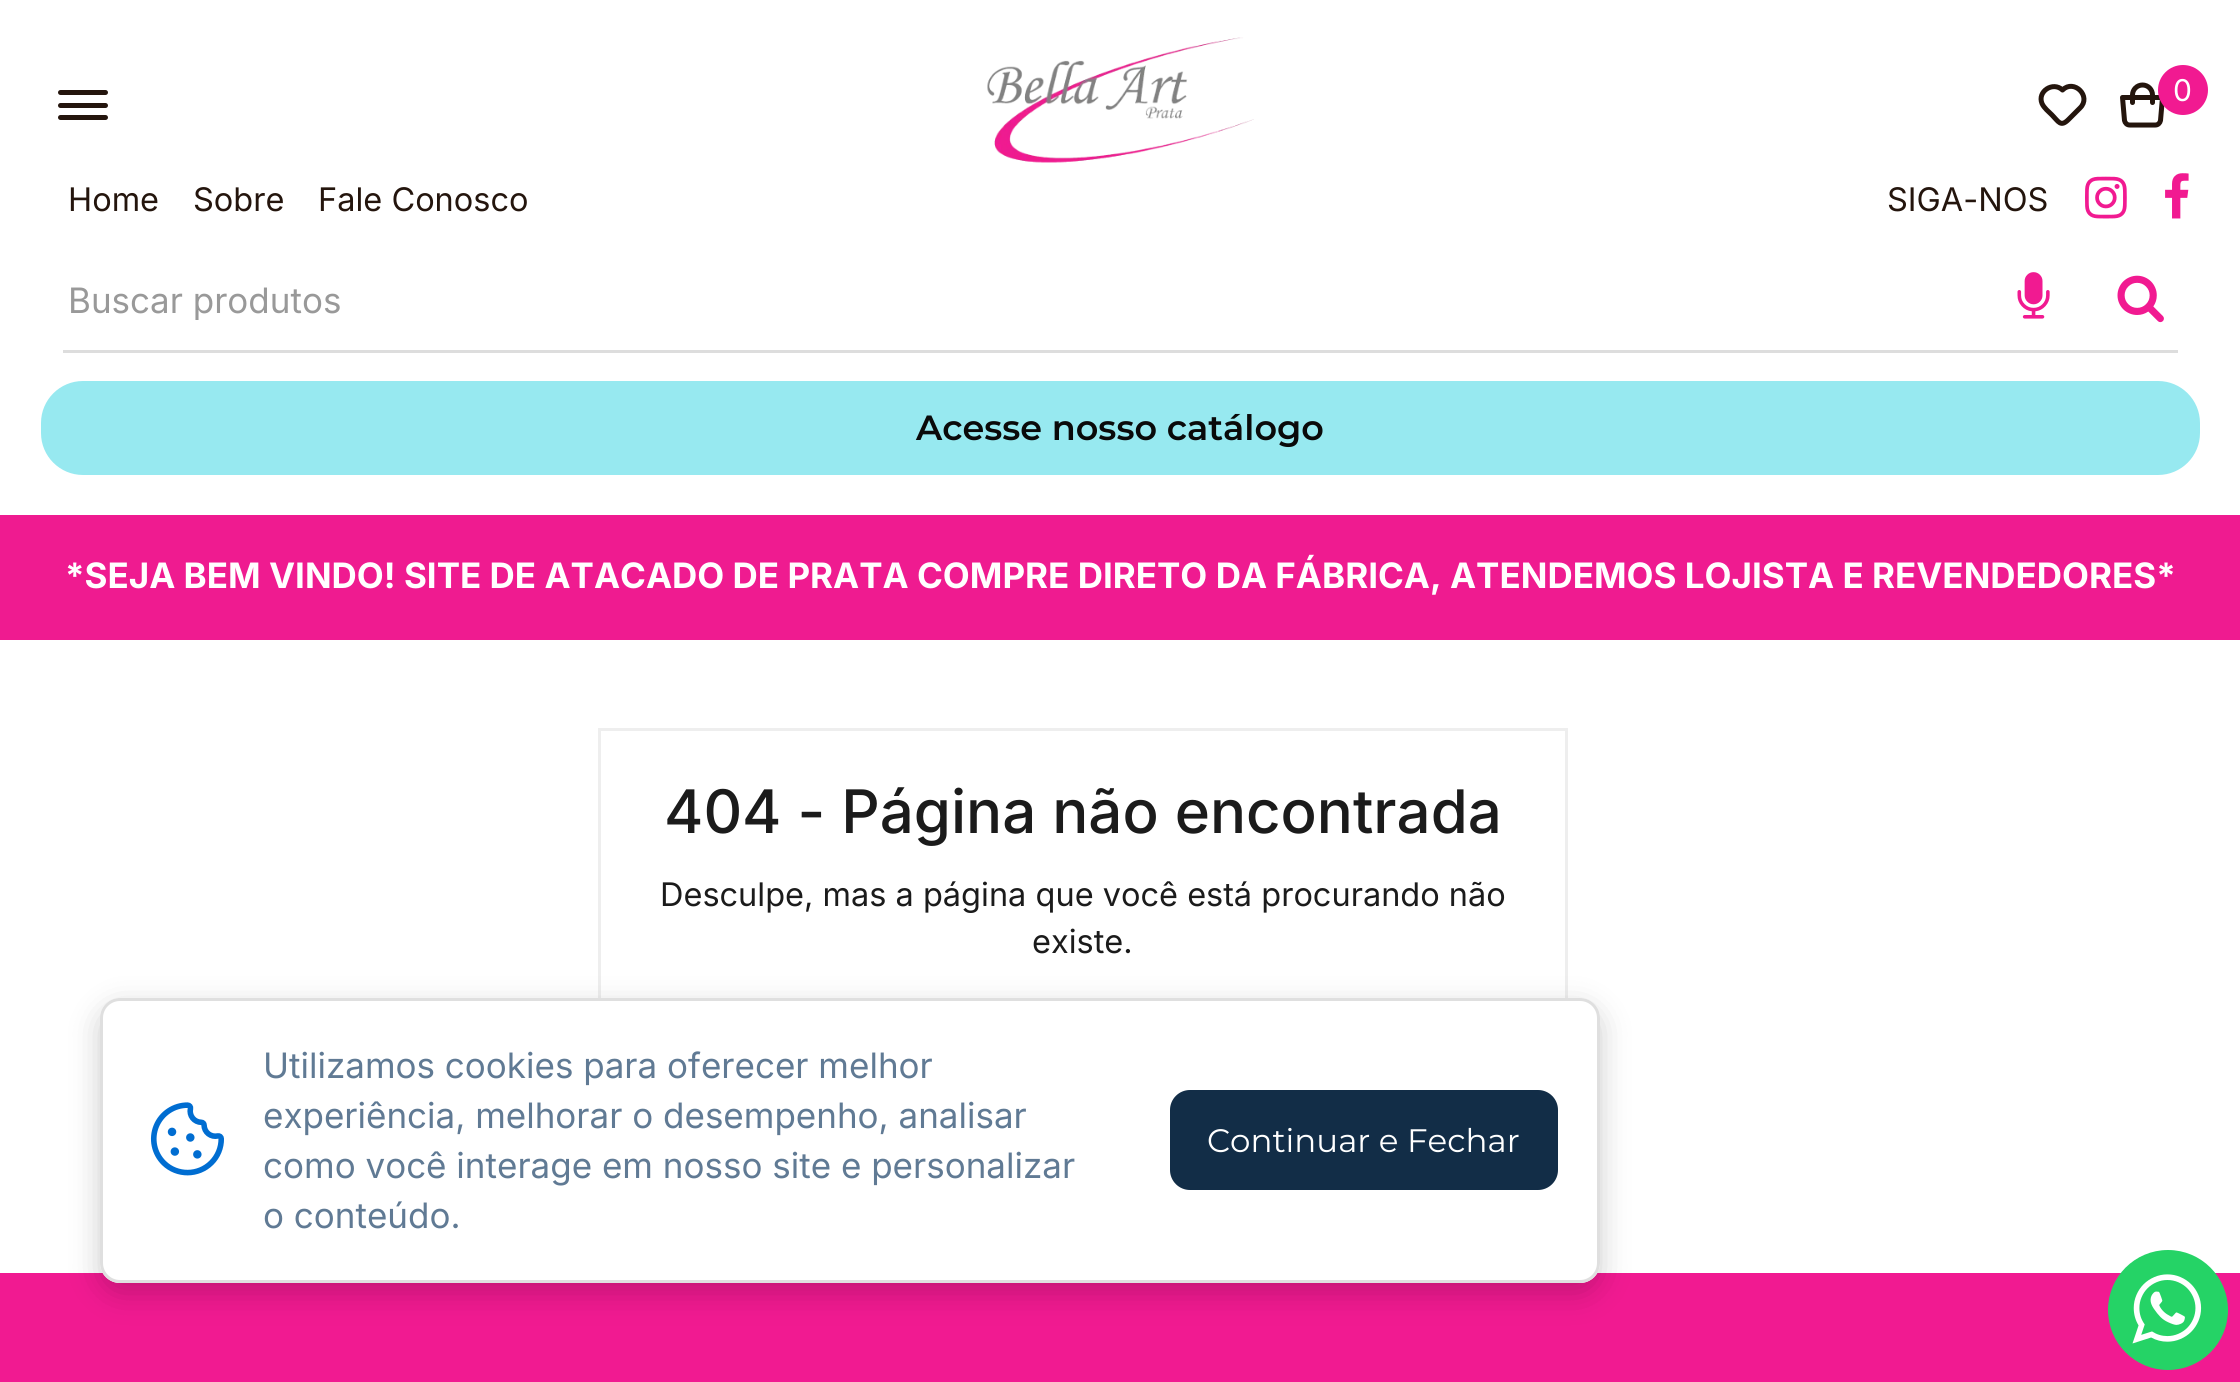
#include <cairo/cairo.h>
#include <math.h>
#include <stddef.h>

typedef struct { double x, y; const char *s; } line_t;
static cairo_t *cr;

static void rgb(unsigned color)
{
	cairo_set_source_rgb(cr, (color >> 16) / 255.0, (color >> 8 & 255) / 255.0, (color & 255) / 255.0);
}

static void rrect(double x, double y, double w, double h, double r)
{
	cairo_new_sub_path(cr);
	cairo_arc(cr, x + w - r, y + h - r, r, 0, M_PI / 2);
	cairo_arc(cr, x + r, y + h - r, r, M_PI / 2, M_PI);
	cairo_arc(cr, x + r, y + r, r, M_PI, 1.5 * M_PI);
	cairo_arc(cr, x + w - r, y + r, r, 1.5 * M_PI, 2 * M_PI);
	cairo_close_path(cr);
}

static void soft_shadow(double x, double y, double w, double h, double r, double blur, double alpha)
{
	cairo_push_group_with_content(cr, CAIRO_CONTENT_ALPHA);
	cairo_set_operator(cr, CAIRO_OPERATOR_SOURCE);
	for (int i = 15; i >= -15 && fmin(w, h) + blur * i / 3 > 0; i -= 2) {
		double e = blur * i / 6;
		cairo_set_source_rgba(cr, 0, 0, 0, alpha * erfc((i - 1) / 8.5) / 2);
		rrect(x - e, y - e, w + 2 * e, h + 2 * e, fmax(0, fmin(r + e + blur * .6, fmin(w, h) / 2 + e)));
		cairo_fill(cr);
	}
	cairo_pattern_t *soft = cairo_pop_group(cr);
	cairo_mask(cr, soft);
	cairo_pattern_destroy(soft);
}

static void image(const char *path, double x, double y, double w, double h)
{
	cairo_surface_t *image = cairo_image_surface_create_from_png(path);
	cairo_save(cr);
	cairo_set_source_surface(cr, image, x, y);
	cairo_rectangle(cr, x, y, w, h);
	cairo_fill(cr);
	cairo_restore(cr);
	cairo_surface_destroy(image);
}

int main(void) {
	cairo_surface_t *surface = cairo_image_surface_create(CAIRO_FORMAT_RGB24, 2240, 1382);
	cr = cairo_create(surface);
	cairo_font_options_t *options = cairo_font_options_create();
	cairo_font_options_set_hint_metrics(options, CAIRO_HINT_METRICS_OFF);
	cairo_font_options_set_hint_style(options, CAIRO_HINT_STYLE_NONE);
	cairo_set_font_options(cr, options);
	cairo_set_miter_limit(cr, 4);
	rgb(0xffffff);
	cairo_paint(cr);
	rgb(0x24150d);
	rrect(58, 90, 50, 5, 2.5);
	cairo_fill(cr);
	rrect(58, 103, 50, 5, 2.5);
	cairo_fill(cr);
	rrect(58, 115, 50, 5, 2.5);
	cairo_fill(cr);
	image("img/1.png", 987, 37, 267, 126);
	cairo_new_path(cr);
	cairo_move_to(cr, 2080, 108);
	cairo_line_to(cr, 2068.5, 119.5);
	cairo_curve_to(cr, 2060.5, 127.5, 2058.5, 121.5, 2052, 115);
	cairo_curve_to(cr, 2048.5, 111.5, 2044, 108, 2042, 103.5);
	cairo_curve_to(cr, 2037, 91.5, 2053, 81, 2062.5, 90);
	cairo_curve_to(cr, 2074, 78.5, 2092, 96.5, 2080, 108);
	cairo_close_path(cr);
	cairo_set_line_width(cr, 5);
	cairo_set_line_cap(cr, CAIRO_LINE_CAP_ROUND);
	cairo_set_line_join(cr, CAIRO_LINE_JOIN_ROUND);
	cairo_stroke(cr);
	cairo_new_path(cr);
	cairo_move_to(cr, 2122.5, 97.5);
	cairo_line_to(cr, 2162.5, 97.5);
	cairo_line_to(cr, 2160.5, 120.5);
	cairo_curve_to(cr, 2160, 123, 2158, 125, 2155.5, 125);
	cairo_line_to(cr, 2129.5, 125);
	cairo_curve_to(cr, 2127, 125, 2125, 123, 2124.5, 120.5);
	cairo_close_path(cr);
	cairo_set_line_cap(cr, CAIRO_LINE_CAP_BUTT);
	cairo_stroke(cr);
	cairo_new_path(cr);
	cairo_move_to(cr, 2132.5, 102.5);
	cairo_line_to(cr, 2132.5, 95);
	cairo_curve_to(cr, 2132.5, 89.5, 2137, 85, 2142.5, 85);
	cairo_curve_to(cr, 2148, 85, 2152.5, 89.5, 2152.5, 95);
	cairo_line_to(cr, 2152.5, 102.5);
	cairo_set_line_cap(cr, CAIRO_LINE_CAP_ROUND);
	cairo_set_line_join(cr, CAIRO_LINE_JOIN_MITER);
	cairo_stroke(cr);
	rgb(0xf11a91);
	cairo_arc(cr, 2183, 90, 25, 0, 2 * M_PI);
	cairo_fill(cr);
	image("img/2.png", 2085, 176, 42, 43);
	image("img/3.png", 2165, 173, 24, 46);
	rgb(0xdddddd);
	cairo_rectangle(cr, 63, 350, 2115, 3);
	cairo_fill(cr);
	image("img/4.png", 2017, 272, 33, 47);
	image("img/5.png", 2117, 275, 47, 48);
	rgb(0x97e9f0);
	rrect(39.5, 379.5, 2162, 97, 43.5);
	cairo_fill_preserve(cr);
	rgb(0xffffff);
	cairo_set_line_width(cr, 3);
	cairo_set_line_cap(cr, CAIRO_LINE_CAP_BUTT);
	cairo_stroke(cr);
	rgb(0xef1b90);
	cairo_rectangle(cr, 0, 515, 2240, 125);
	cairo_fill(cr);
	cairo_rectangle(cr, 599.5, 729.5, 967, 442);
	rgb(0xeeeeee);
	cairo_stroke(cr);
	rgb(0xf11a91);
	cairo_rectangle(cr, 0, 1273, 2240, 109);
	cairo_fill(cr);
	rgb(0x000000);
	soft_shadow(100, 1008, 1500, 285, 20, 15, 0.2);
	rgb(0xffffff);
	rrect(100, 998, 1500, 285, 20);
	cairo_fill(cr);
	image("img/6.png", 150, 1102, 74, 74);
	rrect(101.5, 999.5, 1497, 282, 18.5);
	rgb(0xdfdfdf);
	cairo_stroke(cr);
	rgb(0x122d47);
	rrect(1170, 1090, 388, 100, 20);
	cairo_fill(cr);
	rgb(0x25d366);
	cairo_arc(cr, 2168, 1310, 60, 0, 2 * M_PI);
	cairo_fill(cr);
	image("img/7.png", 2132, 1274, 70, 70);
	cairo_select_font_face(cr, "Inter", CAIRO_FONT_SLANT_NORMAL, CAIRO_FONT_WEIGHT_NORMAL);
	cairo_set_font_size(cr, 30);
	rgb(0xffffff);
	cairo_move_to(cr, 2173, 101);
	cairo_show_text(cr, "0");
	cairo_set_font_size(cr, 32.5);
	rgb(0x24150d);
	{
		static const line_t items[] = {
			{68, 211, "Home"},
			{193, 211, "Sobre"},
			{318, 211, "Fale Conosco"},
			{1887, 211, "SIGA-NOS"},
		};
		for (size_t i = 0; i < sizeof items / sizeof *items; i++) {
			cairo_move_to(cr, items[i].x, items[i].y);
			cairo_show_text(cr, items[i].s);
		}
	}
	cairo_save(cr);
	cairo_rectangle(cr, 68, 278, 1882, 42);
	cairo_clip(cr);
	cairo_set_font_size(cr, 35);
	rgb(0x999999);
	cairo_move_to(cr, 68, 313);
	cairo_show_text(cr, "Buscar produtos");
	cairo_restore(cr);
	cairo_select_font_face(cr, "Montserrat SemiBold", CAIRO_FONT_SLANT_NORMAL, CAIRO_FONT_WEIGHT_NORMAL);
	cairo_set_font_size(cr, 35);
	rgb(0x0a0a0a);
	cairo_move_to(cr, 916, 440);
	cairo_show_text(cr, "Acesse nosso catálogo");
	cairo_select_font_face(cr, "Inter", CAIRO_FONT_SLANT_NORMAL, CAIRO_FONT_WEIGHT_BOLD);
	rgb(0xffffff);
	cairo_move_to(cr, 65, 588);
	cairo_show_text(cr, "*SEJA BEM VINDO! SITE DE ATACADO DE PRATA COMPRE DIRETO DA FÁBRICA, ATENDEMOS LOJISTA E REVENDEDORES*");
	cairo_select_font_face(cr, "Inter Medium", CAIRO_FONT_SLANT_NORMAL, CAIRO_FONT_WEIGHT_NORMAL);
	cairo_set_font_size(cr, 60);
	rgb(0x1b1b1b);
	cairo_move_to(cr, 664, 833);
	cairo_show_text(cr, "404 - Página não encontrada");
	cairo_select_font_face(cr, "Inter", CAIRO_FONT_SLANT_NORMAL, CAIRO_FONT_WEIGHT_NORMAL);
	cairo_set_font_size(cr, 32.5);
	cairo_move_to(cr, 660, 906);
	cairo_show_text(cr, "Desculpe, mas a página que você está procurando não");
	cairo_move_to(cr, 1032, 953);
	cairo_show_text(cr, "existe.");
	cairo_set_font_size(cr, 35);
	rgb(0x607a94);
	{
		static const line_t items[] = {
			{263, 1078, "Utilizamos cookies para oferecer melhor"},
			{263, 1128, "experiência, melhorar o desempenho, analisar"},
			{263, 1178, "como você interage em nosso site e personalizar"},
			{263, 1228, "o conteúdo."},
		};
		for (size_t i = 0; i < sizeof items / sizeof *items; i++) {
			cairo_move_to(cr, items[i].x, items[i].y);
			cairo_show_text(cr, items[i].s);
		}
	}
	cairo_select_font_face(cr, "Montserrat", CAIRO_FONT_SLANT_NORMAL, CAIRO_FONT_WEIGHT_NORMAL);
	cairo_set_font_size(cr, 32.5);
	rgb(0xffffff);
	cairo_move_to(cr, 1207, 1152);
	cairo_show_text(cr, "Continuar e Fechar");
	cairo_surface_write_to_png(surface, "page.png");
	cairo_font_options_destroy(options);
	cairo_destroy(cr);
	cairo_surface_destroy(surface);
	return 0;
}
